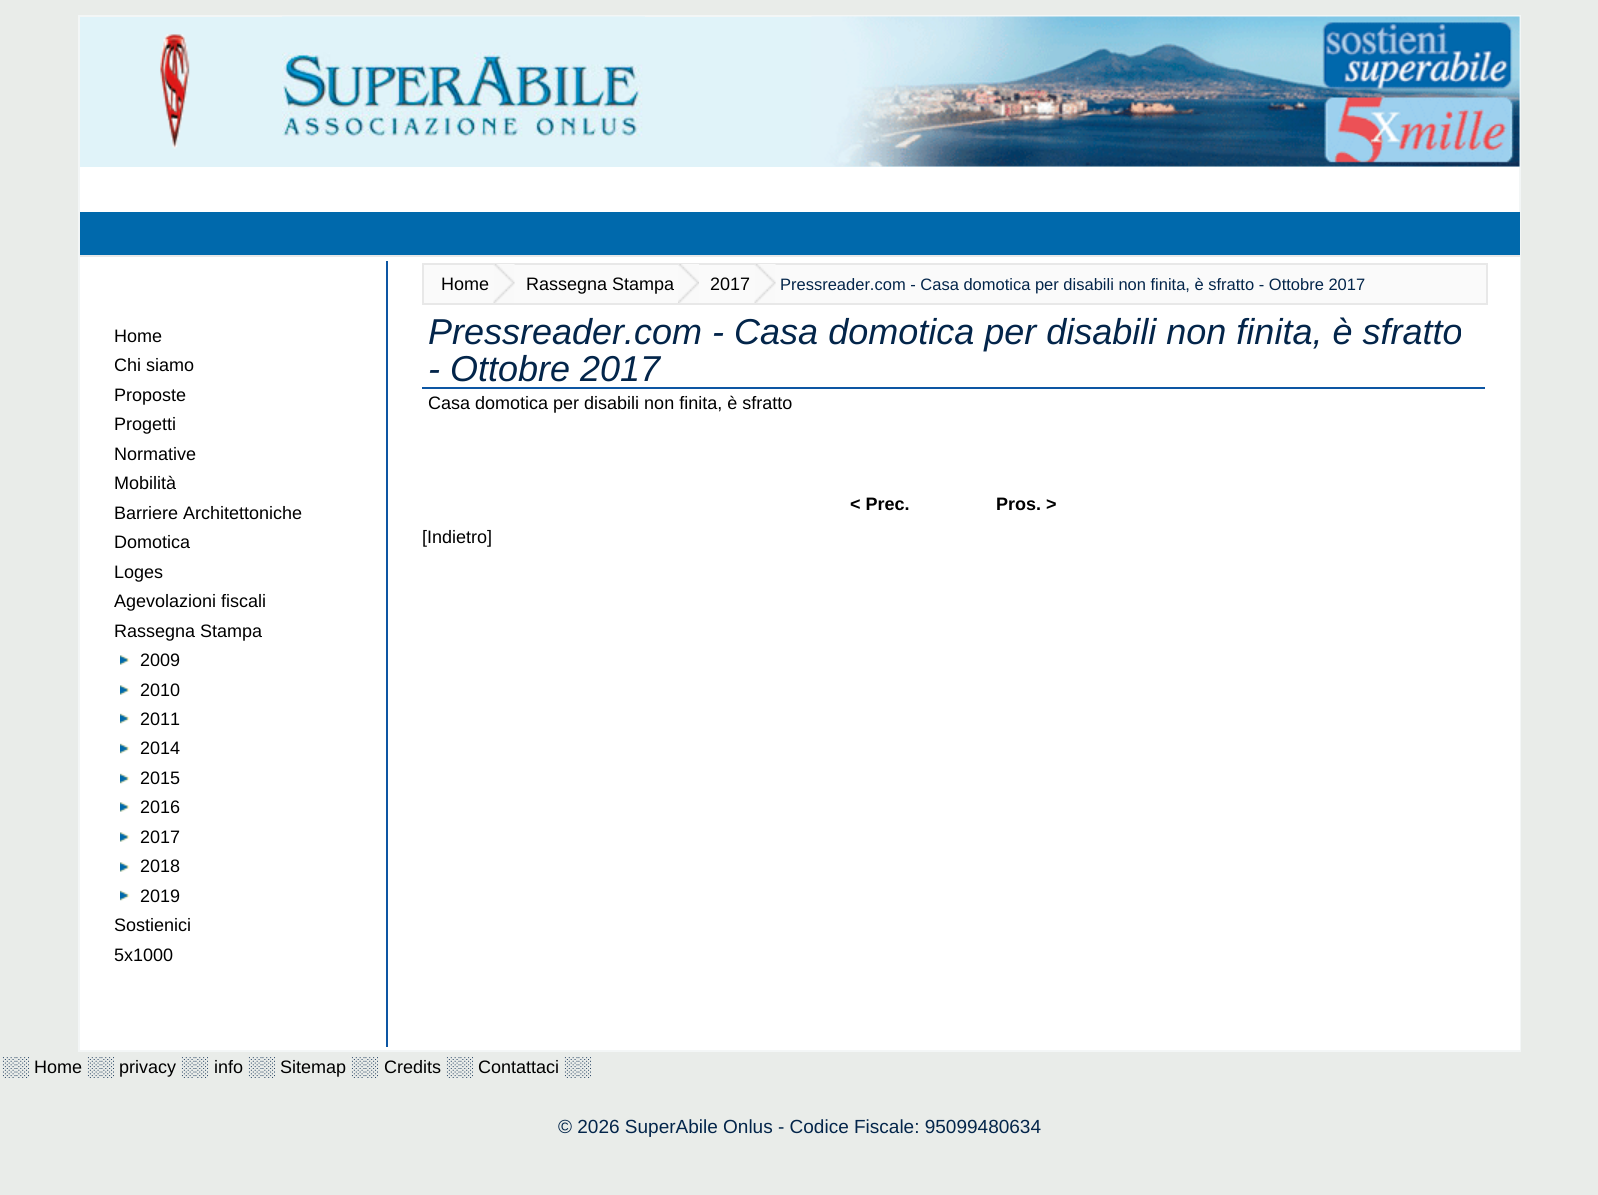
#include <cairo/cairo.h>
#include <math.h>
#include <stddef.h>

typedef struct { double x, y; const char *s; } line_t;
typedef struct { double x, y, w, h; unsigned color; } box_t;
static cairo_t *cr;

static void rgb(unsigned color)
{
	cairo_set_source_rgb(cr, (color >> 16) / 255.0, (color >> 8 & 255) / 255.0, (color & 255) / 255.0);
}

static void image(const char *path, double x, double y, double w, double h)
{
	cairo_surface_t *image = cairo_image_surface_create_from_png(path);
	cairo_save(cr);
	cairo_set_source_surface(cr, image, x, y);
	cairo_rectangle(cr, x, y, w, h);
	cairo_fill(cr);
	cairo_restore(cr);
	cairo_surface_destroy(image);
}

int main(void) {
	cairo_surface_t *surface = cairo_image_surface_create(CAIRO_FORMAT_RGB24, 1598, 1195);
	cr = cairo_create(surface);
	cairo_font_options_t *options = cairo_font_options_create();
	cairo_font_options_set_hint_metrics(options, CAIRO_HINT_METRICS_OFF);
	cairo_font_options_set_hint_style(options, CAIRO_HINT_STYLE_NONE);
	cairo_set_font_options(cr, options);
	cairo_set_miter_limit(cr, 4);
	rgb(0xe9ece9);
	cairo_paint(cr);
	rgb(0xffffff);
	cairo_rectangle(cr, 80, 167, 1439, 45);
	cairo_fill(cr);
	cairo_rectangle(cr, 79, 16, 1441, 1035);
	rgb(0xf3f6f6);
	cairo_stroke(cr);
	rgb(0xe0f3f9);
	cairo_rectangle(cr, 80, 17, 1440, 150);
	cairo_fill(cr);
	image("img/1.png", 282, 16, 363, 121);
	image("img/2.png", 811, 16, 709, 151);
	image("img/3.png", 160, 34, 30, 115);
	{
		static const box_t items[] = {
			{80, 212, 1440, 43, 0x0069ac},
			{80, 255, 1440, 2, 0xe8e8e8},
			{80, 257, 1440, 793, 0xffffff},
			{386, 261, 2, 786, 0x0d56a3},
		};
		for (size_t i = 0; i < sizeof items / sizeof *items; i++) {
			rgb(items[i].color);
			cairo_rectangle(cr, items[i].x, items[i].y, items[i].w, items[i].h);
			cairo_fill(cr);
		}
	}
	image("img/4.png", 120, 655, 10, 10);
	image("img/4.png", 120, 685, 10, 10);
	image("img/5.png", 120, 713, 10, 11);
	image("img/5.png", 120, 743, 10, 11);
	image("img/5.png", 120, 773, 10, 11);
	image("img/4.png", 120, 802, 10, 10);
	image("img/4.png", 120, 832, 10, 10);
	image("img/4.png", 120, 862, 10, 10);
	image("img/5.png", 120, 890, 10, 11);
	rgb(0xfafafa);
	cairo_rectangle(cr, 423, 264, 1064, 40);
	cairo_fill_preserve(cr);
	rgb(0xe8e8e8);
	cairo_stroke(cr);
	image("img/6.png", 493, 264, 22, 39);
	image("img/7.png", 678, 264, 21, 39);
	image("img/8.png", 754, 264, 22, 39);
	rgb(0x0d56a3);
	cairo_rectangle(cr, 422, 387, 1063, 2);
	cairo_fill(cr);
	cairo_select_font_face(cr, "Liberation Sans", CAIRO_FONT_SLANT_NORMAL, CAIRO_FONT_WEIGHT_NORMAL);
	cairo_set_font_size(cr, 18);
	rgb(0x000000);
	{
		static const line_t items[] = {
			{114, 342, "Home"},
			{114, 371, "Chi siamo"},
			{114, 401, "Proposte"},
			{114, 430, "Progetti"},
			{114, 460, "Normative"},
			{114, 489, "Mobilità"},
			{114, 519, "Barriere Architettoniche"},
			{114, 548, "Domotica"},
			{114, 578, "Loges"},
			{114, 607, "Agevolazioni fiscali"},
			{114, 637, "Rassegna Stampa"},
			{140, 666, "2009"},
			{140, 696, "2010"},
			{140, 725, "2011"},
			{140, 754, "2014"},
			{140, 784, "2015"},
			{140, 813, "2016"},
			{140, 843, "2017"},
			{140, 872, "2018"},
			{140, 902, "2019"},
			{114, 931, "Sostienici"},
			{114, 961, "5x1000"},
			{441, 290, "Home"},
			{526, 290, "Rassegna Stampa"},
			{710, 290, "2017"},
		};
		for (size_t i = 0; i < sizeof items / sizeof *items; i++) {
			cairo_move_to(cr, items[i].x, items[i].y);
			cairo_show_text(cr, items[i].s);
		}
	}
	cairo_set_font_size(cr, 16.5);
	rgb(0x03254a);
	cairo_move_to(cr, 780, 290);
	cairo_show_text(cr, "Pressreader.com - Casa domotica per disabili non finita, è sfratto - Ottobre 2017");
	cairo_select_font_face(cr, "Liberation Sans", CAIRO_FONT_SLANT_ITALIC, CAIRO_FONT_WEIGHT_NORMAL);
	cairo_set_font_size(cr, 36);
	cairo_move_to(cr, 428, 344);
	cairo_show_text(cr, "Pressreader.com - Casa domotica per disabili non finita, è sfratto");
	cairo_move_to(cr, 428, 381);
	cairo_show_text(cr, "- Ottobre 2017");
	cairo_select_font_face(cr, "Liberation Sans", CAIRO_FONT_SLANT_NORMAL, CAIRO_FONT_WEIGHT_NORMAL);
	cairo_set_font_size(cr, 18);
	rgb(0x000000);
	cairo_move_to(cr, 428, 409);
	cairo_show_text(cr, "Casa domotica per disabili non finita, è sfratto");
	cairo_select_font_face(cr, "Liberation Sans", CAIRO_FONT_SLANT_NORMAL, CAIRO_FONT_WEIGHT_BOLD);
	cairo_move_to(cr, 850, 510);
	cairo_show_text(cr, "< Prec.");
	cairo_move_to(cr, 996, 510);
	cairo_show_text(cr, "Pros. >");
	cairo_select_font_face(cr, "Liberation Sans", CAIRO_FONT_SLANT_NORMAL, CAIRO_FONT_WEIGHT_NORMAL);
	cairo_move_to(cr, 422, 543);
	cairo_show_text(cr, "[Indietro]");
	cairo_set_font_size(cr, 19);
	rgb(0x03254a);
	cairo_move_to(cr, 2, 1073);
	cairo_show_text(cr, "░░");
	cairo_set_font_size(cr, 18);
	rgb(0x000000);
	cairo_move_to(cr, 34, 1073);
	cairo_show_text(cr, "Home");
	cairo_set_font_size(cr, 19);
	rgb(0x03254a);
	cairo_move_to(cr, 87, 1073);
	cairo_show_text(cr, "░░");
	cairo_set_font_size(cr, 18);
	rgb(0x000000);
	cairo_move_to(cr, 119, 1073);
	cairo_show_text(cr, "privacy");
	cairo_set_font_size(cr, 19);
	rgb(0x03254a);
	cairo_move_to(cr, 181, 1073);
	cairo_show_text(cr, "░░");
	cairo_set_font_size(cr, 18);
	rgb(0x000000);
	cairo_move_to(cr, 214, 1073);
	cairo_show_text(cr, "info");
	cairo_set_font_size(cr, 19);
	rgb(0x03254a);
	cairo_move_to(cr, 248, 1073);
	cairo_show_text(cr, "░░");
	cairo_set_font_size(cr, 18);
	rgb(0x000000);
	cairo_move_to(cr, 280, 1073);
	cairo_show_text(cr, "Sitemap");
	cairo_set_font_size(cr, 19);
	rgb(0x03254a);
	cairo_move_to(cr, 351, 1073);
	cairo_show_text(cr, "░░");
	cairo_set_font_size(cr, 18);
	rgb(0x000000);
	cairo_move_to(cr, 384, 1073);
	cairo_show_text(cr, "Credits");
	cairo_set_font_size(cr, 19);
	rgb(0x03254a);
	cairo_move_to(cr, 446, 1073);
	cairo_show_text(cr, "░░");
	cairo_set_font_size(cr, 18);
	rgb(0x000000);
	cairo_move_to(cr, 478, 1073);
	cairo_show_text(cr, "Contattaci");
	cairo_set_font_size(cr, 19);
	rgb(0x03254a);
	cairo_move_to(cr, 564, 1073);
	cairo_show_text(cr, "░░");
	cairo_move_to(cr, 558, 1133);
	cairo_show_text(cr, "© 2026 SuperAbile Onlus - Codice Fiscale: 95099480634");
	cairo_surface_write_to_png(surface, "page.png");
	cairo_font_options_destroy(options);
	cairo_destroy(cr);
	cairo_surface_destroy(surface);
	return 0;
}
